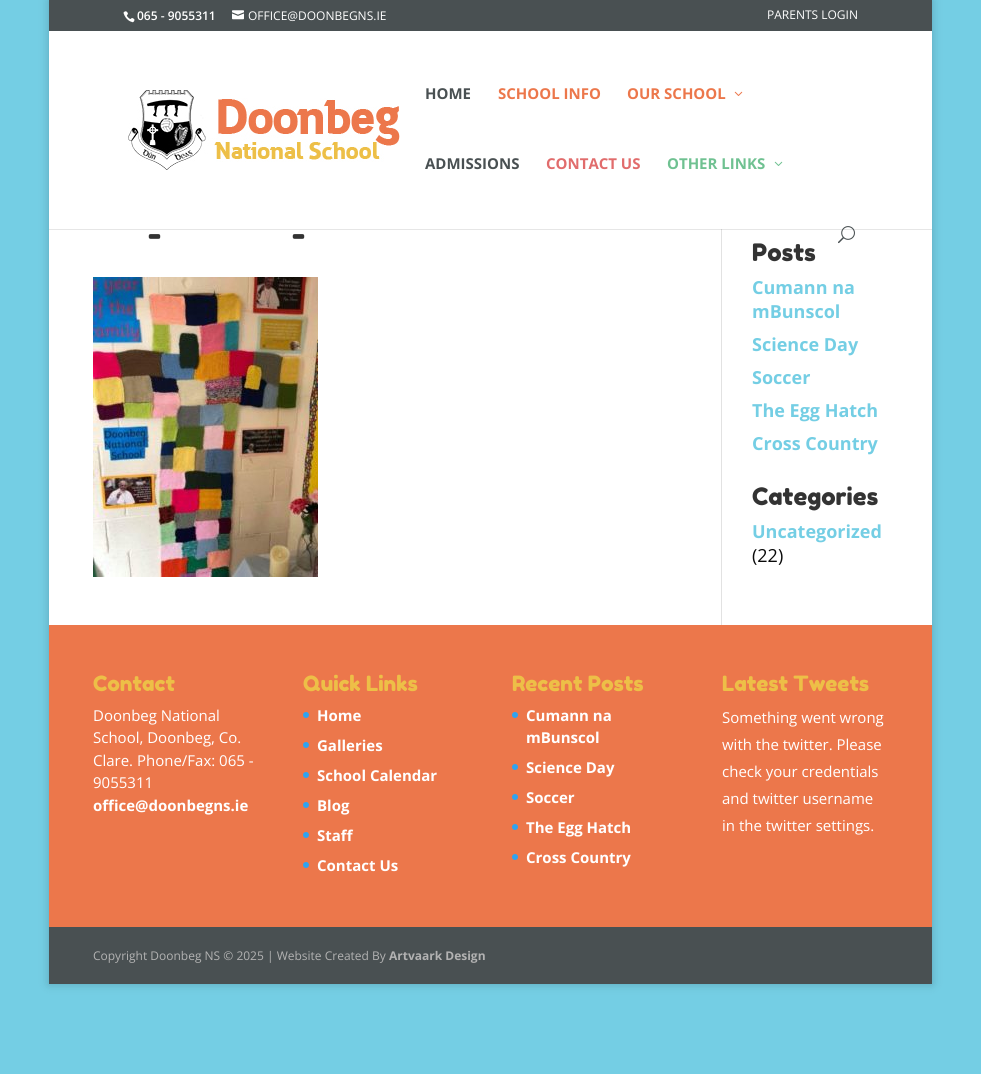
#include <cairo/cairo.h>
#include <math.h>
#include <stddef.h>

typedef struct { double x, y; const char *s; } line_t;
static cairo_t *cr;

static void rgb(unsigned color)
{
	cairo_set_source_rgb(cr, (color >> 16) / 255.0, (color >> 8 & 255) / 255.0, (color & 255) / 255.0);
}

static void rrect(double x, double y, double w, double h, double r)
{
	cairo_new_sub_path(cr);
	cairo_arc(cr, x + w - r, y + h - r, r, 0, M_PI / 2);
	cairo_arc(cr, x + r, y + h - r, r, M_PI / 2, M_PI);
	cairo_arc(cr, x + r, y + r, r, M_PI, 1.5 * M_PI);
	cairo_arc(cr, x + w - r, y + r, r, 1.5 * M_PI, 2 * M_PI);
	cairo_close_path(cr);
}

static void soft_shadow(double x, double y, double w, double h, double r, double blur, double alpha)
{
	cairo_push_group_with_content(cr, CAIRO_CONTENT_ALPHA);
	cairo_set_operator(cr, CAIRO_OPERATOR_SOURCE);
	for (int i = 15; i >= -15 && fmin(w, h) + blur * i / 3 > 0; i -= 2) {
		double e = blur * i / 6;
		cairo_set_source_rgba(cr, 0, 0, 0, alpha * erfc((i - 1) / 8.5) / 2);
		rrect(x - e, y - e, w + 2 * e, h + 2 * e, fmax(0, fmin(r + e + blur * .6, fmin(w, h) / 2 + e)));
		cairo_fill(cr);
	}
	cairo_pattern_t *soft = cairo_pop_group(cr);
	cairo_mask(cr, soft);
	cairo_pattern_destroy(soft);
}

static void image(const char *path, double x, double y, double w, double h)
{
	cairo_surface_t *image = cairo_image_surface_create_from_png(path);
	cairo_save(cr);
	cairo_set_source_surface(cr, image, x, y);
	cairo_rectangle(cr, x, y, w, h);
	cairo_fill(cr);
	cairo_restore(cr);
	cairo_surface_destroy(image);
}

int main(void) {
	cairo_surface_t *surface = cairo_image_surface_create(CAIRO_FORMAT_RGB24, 981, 1074);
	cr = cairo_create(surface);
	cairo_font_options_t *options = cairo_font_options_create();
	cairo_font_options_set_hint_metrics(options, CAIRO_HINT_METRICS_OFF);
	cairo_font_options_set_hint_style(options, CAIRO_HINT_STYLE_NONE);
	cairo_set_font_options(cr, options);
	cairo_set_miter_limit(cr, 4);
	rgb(0x74cee4);
	cairo_paint(cr);
	rgb(0x000000);
	soft_shadow(49, 0, 883, 984, 0, 5, 0.2);
	rgb(0x495052);
	cairo_rectangle(cr, 49, 0, 883, 31);
	cairo_fill(cr);
	image("img/1.png", 123, 11, 12, 12);
	image("img/2.png", 232, 10, 12, 10);
	rgb(0xffffff);
	cairo_rectangle(cr, 49, 31, 883, 594);
	cairo_fill(cr);
	rgb(0xe2e2e2);
	cairo_rectangle(cr, 721, 229, 1, 396);
	cairo_fill(cr);
	cairo_set_source_rgba(cr, 0, 0, 0, 0.1);
	cairo_rectangle(cr, 49, 229, 883, 1);
	cairo_fill(cr);
	image("img/3.png", 128, 90, 272, 80);
	image("img/4.png", 734, 91, 9, 5);
	image("img/5.png", 774, 161, 9, 5);
	image("img/6.png", 838, 226, 17, 18);
	image("img/7.png", 93, 277, 225, 300);
	rgb(0xec774b);
	cairo_rectangle(cr, 49, 625, 883, 302);
	cairo_fill(cr);
	rgb(0x2ea3f2);
	cairo_arc(cr, 306, 715, 3, 0, 2 * M_PI);
	cairo_fill(cr);
	cairo_arc(cr, 306, 745, 3, 0, 2 * M_PI);
	cairo_fill(cr);
	cairo_arc(cr, 306, 775, 3, 0, 2 * M_PI);
	cairo_fill(cr);
	cairo_arc(cr, 306, 805, 3, 0, 2 * M_PI);
	cairo_fill(cr);
	cairo_arc(cr, 306, 835, 3, 0, 2 * M_PI);
	cairo_fill(cr);
	cairo_arc(cr, 306, 865, 3, 0, 2 * M_PI);
	cairo_fill(cr);
	cairo_arc(cr, 515, 715, 3, 0, 2 * M_PI);
	cairo_fill(cr);
	cairo_arc(cr, 515, 767, 3, 0, 2 * M_PI);
	cairo_fill(cr);
	cairo_arc(cr, 515, 797, 3, 0, 2 * M_PI);
	cairo_fill(cr);
	cairo_arc(cr, 515, 827, 3, 0, 2 * M_PI);
	cairo_fill(cr);
	cairo_arc(cr, 515, 857, 3, 0, 2 * M_PI);
	cairo_fill(cr);
	rgb(0x495052);
	cairo_rectangle(cr, 49, 927, 883, 57);
	cairo_fill(cr);
	cairo_select_font_face(cr, "Open Sans SemiBold", CAIRO_FONT_SLANT_NORMAL, CAIRO_FONT_WEIGHT_NORMAL);
	cairo_set_font_size(cr, 12);
	rgb(0xffffff);
	cairo_move_to(cr, 137, 20);
	cairo_show_text(cr, "065 - 9055311");
	cairo_select_font_face(cr, "Open Sans", CAIRO_FONT_SLANT_NORMAL, CAIRO_FONT_WEIGHT_NORMAL);
	cairo_move_to(cr, 248, 20);
	cairo_show_text(cr, "OFFICE@DOONBEGNS.IE");
	cairo_move_to(cr, 767, 19);
	cairo_show_text(cr, "PARENTS LOGIN");
	cairo_select_font_face(cr, "Open Sans", CAIRO_FONT_SLANT_NORMAL, CAIRO_FONT_WEIGHT_BOLD);
	cairo_set_font_size(cr, 15);
	rgb(0x495052);
	cairo_move_to(cr, 425, 99);
	cairo_show_text(cr, "HOME");
	rgb(0xec774b);
	cairo_move_to(cr, 498, 99);
	cairo_show_text(cr, "SCHOOL INFO");
	cairo_move_to(cr, 627, 99);
	cairo_show_text(cr, "OUR SCHOOL");
	rgb(0x495052);
	cairo_move_to(cr, 425, 169);
	cairo_show_text(cr, "ADMISSIONS");
	rgb(0xe16c6c);
	cairo_move_to(cr, 546, 169);
	cairo_show_text(cr, "CONTACT US");
	rgb(0x6fc191);
	cairo_move_to(cr, 667, 169);
	cairo_show_text(cr, "OTHER LINKS");
	cairo_select_font_face(cr, "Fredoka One", CAIRO_FONT_SLANT_NORMAL, CAIRO_FONT_WEIGHT_NORMAL);
	cairo_set_font_size(cr, 30);
	rgb(0x333333);
	cairo_move_to(cr, 148, 243);
	cairo_show_text(cr, "-");
	cairo_move_to(cr, 292, 243);
	cairo_show_text(cr, "-");
	cairo_set_font_size(cr, 24);
	cairo_move_to(cr, 752, 261);
	cairo_show_text(cr, "Posts");
	cairo_select_font_face(cr, "Open Sans", CAIRO_FONT_SLANT_NORMAL, CAIRO_FONT_WEIGHT_BOLD);
	cairo_set_font_size(cr, 18);
	rgb(0x74cee4);
	{
		static const line_t items[] = {
			{752, 294, "Cumann na"},
			{752, 318, "mBunscol"},
			{752, 351, "Science Day"},
			{752, 384, "Soccer"},
			{752, 417, "The Egg Hatch"},
			{752, 450, "Cross Country"},
		};
		for (size_t i = 0; i < sizeof items / sizeof *items; i++) {
			cairo_move_to(cr, items[i].x, items[i].y);
			cairo_show_text(cr, items[i].s);
		}
	}
	cairo_select_font_face(cr, "Fredoka One", CAIRO_FONT_SLANT_NORMAL, CAIRO_FONT_WEIGHT_NORMAL);
	cairo_set_font_size(cr, 24);
	rgb(0x333333);
	cairo_move_to(cr, 752, 505);
	cairo_show_text(cr, "Categories");
	cairo_select_font_face(cr, "Open Sans", CAIRO_FONT_SLANT_NORMAL, CAIRO_FONT_WEIGHT_BOLD);
	cairo_set_font_size(cr, 18);
	rgb(0x74cee4);
	cairo_move_to(cr, 752, 538);
	cairo_show_text(cr, "Uncategorized");
	cairo_select_font_face(cr, "Open Sans", CAIRO_FONT_SLANT_NORMAL, CAIRO_FONT_WEIGHT_NORMAL);
	rgb(0x0a0a0a);
	cairo_move_to(cr, 752, 562);
	cairo_show_text(cr, "(22)");
	cairo_select_font_face(cr, "Fredoka One", CAIRO_FONT_SLANT_NORMAL, CAIRO_FONT_WEIGHT_NORMAL);
	cairo_set_font_size(cr, 21);
	rgb(0xedbf47);
	cairo_move_to(cr, 93, 691);
	cairo_show_text(cr, "Contact");
	cairo_select_font_face(cr, "Open Sans", CAIRO_FONT_SLANT_NORMAL, CAIRO_FONT_WEIGHT_NORMAL);
	cairo_set_font_size(cr, 15);
	rgb(0xffffff);
	{
		static const line_t items[] = {
			{93, 721, "Doonbeg National"},
			{93, 743, "School, Doonbeg, Co."},
			{93, 766, "Clare. Phone/Fax: 065 -"},
			{93, 788, "9055311"},
		};
		for (size_t i = 0; i < sizeof items / sizeof *items; i++) {
			cairo_move_to(cr, items[i].x, items[i].y);
			cairo_show_text(cr, items[i].s);
		}
	}
	cairo_select_font_face(cr, "Open Sans", CAIRO_FONT_SLANT_NORMAL, CAIRO_FONT_WEIGHT_BOLD);
	cairo_move_to(cr, 93, 811);
	cairo_show_text(cr, "office@doonbegns.ie");
	cairo_select_font_face(cr, "Fredoka One", CAIRO_FONT_SLANT_NORMAL, CAIRO_FONT_WEIGHT_NORMAL);
	cairo_set_font_size(cr, 21);
	rgb(0xedbf47);
	cairo_move_to(cr, 303, 691);
	cairo_show_text(cr, "Quick Links");
	cairo_select_font_face(cr, "Open Sans", CAIRO_FONT_SLANT_NORMAL, CAIRO_FONT_WEIGHT_BOLD);
	cairo_set_font_size(cr, 15);
	rgb(0xffffff);
	{
		static const line_t items[] = {
			{317, 721, "Home"},
			{317, 751, "Galleries"},
			{317, 781, "School Calendar"},
			{317, 811, "Blog"},
			{317, 841, "Staff"},
			{317, 871, "Contact Us"},
		};
		for (size_t i = 0; i < sizeof items / sizeof *items; i++) {
			cairo_move_to(cr, items[i].x, items[i].y);
			cairo_show_text(cr, items[i].s);
		}
	}
	cairo_select_font_face(cr, "Fredoka One", CAIRO_FONT_SLANT_NORMAL, CAIRO_FONT_WEIGHT_NORMAL);
	cairo_set_font_size(cr, 21);
	rgb(0xedbf47);
	cairo_move_to(cr, 512, 691);
	cairo_show_text(cr, "Recent Posts");
	cairo_select_font_face(cr, "Open Sans", CAIRO_FONT_SLANT_NORMAL, CAIRO_FONT_WEIGHT_BOLD);
	cairo_set_font_size(cr, 15);
	rgb(0xffffff);
	{
		static const line_t items[] = {
			{526, 721, "Cumann na"},
			{526, 743, "mBunscol"},
			{526, 773, "Science Day"},
			{526, 803, "Soccer"},
			{526, 833, "The Egg Hatch"},
			{526, 863, "Cross Country"},
		};
		for (size_t i = 0; i < sizeof items / sizeof *items; i++) {
			cairo_move_to(cr, items[i].x, items[i].y);
			cairo_show_text(cr, items[i].s);
		}
	}
	cairo_select_font_face(cr, "Fredoka One", CAIRO_FONT_SLANT_NORMAL, CAIRO_FONT_WEIGHT_NORMAL);
	cairo_set_font_size(cr, 21);
	rgb(0xedbf47);
	cairo_move_to(cr, 722, 691);
	cairo_show_text(cr, "Latest Tweets");
	cairo_select_font_face(cr, "Open Sans", CAIRO_FONT_SLANT_NORMAL, CAIRO_FONT_WEIGHT_NORMAL);
	cairo_set_font_size(cr, 15);
	rgb(0xffffff);
	{
		static const line_t items[] = {
			{722, 723, "Something went wrong"},
			{722, 750, "with the twitter. Please"},
			{722, 777, "check your credentials"},
			{722, 804, "and twitter username"},
			{722, 831, "in the twitter settings."},
		};
		for (size_t i = 0; i < sizeof items / sizeof *items; i++) {
			cairo_move_to(cr, items[i].x, items[i].y);
			cairo_show_text(cr, items[i].s);
		}
	}
	cairo_set_font_size(cr, 12);
	rgb(0xb2b2b2);
	cairo_move_to(cr, 93, 960);
	cairo_show_text(cr, "Copyright Doonbeg NS © 2025 | Website Created By");
	cairo_select_font_face(cr, "Open Sans", CAIRO_FONT_SLANT_NORMAL, CAIRO_FONT_WEIGHT_BOLD);
	cairo_move_to(cr, 389, 960);
	cairo_show_text(cr, "Artvaark Design");
	cairo_surface_write_to_png(surface, "page.png");
	cairo_font_options_destroy(options);
	cairo_destroy(cr);
	cairo_surface_destroy(surface);
	return 0;
}
